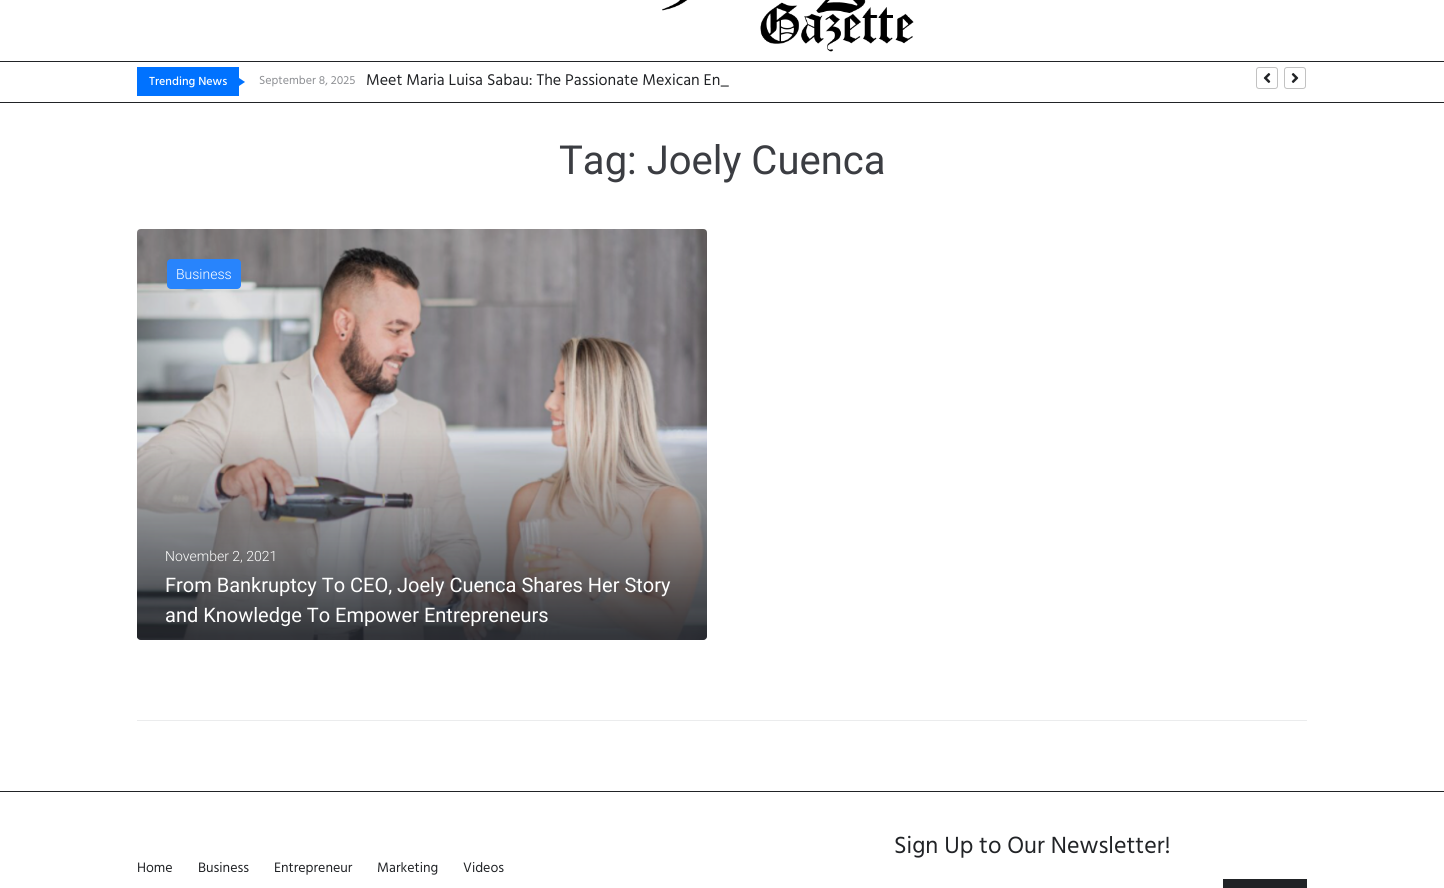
#include <cairo/cairo.h>
#include <math.h>
#include <stddef.h>

typedef struct { double x, y; const char *s; } line_t;
typedef struct { double x, y, w, h; unsigned color; } box_t;
static cairo_t *cr;

static void rgb(unsigned color)
{
	cairo_set_source_rgb(cr, (color >> 16) / 255.0, (color >> 8 & 255) / 255.0, (color & 255) / 255.0);
}

static void rrect(double x, double y, double w, double h, double r)
{
	cairo_new_sub_path(cr);
	cairo_arc(cr, x + w - r, y + h - r, r, 0, M_PI / 2);
	cairo_arc(cr, x + r, y + h - r, r, M_PI / 2, M_PI);
	cairo_arc(cr, x + r, y + r, r, M_PI, 1.5 * M_PI);
	cairo_arc(cr, x + w - r, y + r, r, 1.5 * M_PI, 2 * M_PI);
	cairo_close_path(cr);
}

static void image(const char *path, double x, double y, double w, double h)
{
	cairo_surface_t *image = cairo_image_surface_create_from_png(path);
	cairo_save(cr);
	cairo_set_source_surface(cr, image, x, y);
	cairo_rectangle(cr, x, y, w, h);
	cairo_fill(cr);
	cairo_restore(cr);
	cairo_surface_destroy(image);
}

int main(void) {
	cairo_surface_t *surface = cairo_image_surface_create(CAIRO_FORMAT_RGB24, 1444, 888);
	cr = cairo_create(surface);
	cairo_font_options_t *options = cairo_font_options_create();
	cairo_font_options_set_hint_metrics(options, CAIRO_HINT_METRICS_OFF);
	cairo_font_options_set_hint_style(options, CAIRO_HINT_STYLE_NONE);
	cairo_set_font_options(cr, options);
	cairo_set_miter_limit(cr, 4);
	cairo_pattern_t *gradient;
	rgb(0xffffff);
	cairo_paint(cr);
	image("img/1.png", 662, 0, 252, 52);
	{
		static const box_t items[] = {
			{0, 61, 1444, 1, 0x212326},
			{0, 102, 1444, 1, 0x212326},
			{137, 67, 102, 29, 0x0072ff},
		};
		for (size_t i = 0; i < sizeof items / sizeof *items; i++) {
			rgb(items[i].color);
			cairo_rectangle(cr, items[i].x, items[i].y, items[i].w, items[i].h);
			cairo_fill(cr);
		}
	}
	cairo_new_path(cr);
	cairo_move_to(cr, 239, 86);
	cairo_line_to(cr, 239, 78);
	cairo_line_to(cr, 245, 82);
	cairo_close_path(cr);
	cairo_fill(cr);
	rrect(1256.5, 67.5, 21, 21, 2.5);
	rgb(0xc2c2c2);
	cairo_set_line_width(cr, 1);
	cairo_stroke(cr);
	image("img/2.png", 1263, 73, 8, 10);
	rrect(1284.5, 67.5, 21, 21, 2.5);
	cairo_stroke(cr);
	image("img/3.png", 1291, 73, 8, 10);
	image("img/4.png", 137, 229, 570, 411);
	cairo_set_source_rgba(cr, 0, 0, 0, 0.1);
	rrect(137, 229, 570, 411, 4);
	cairo_fill(cr);
	rgb(0x2884fc);
	rrect(167, 259, 74, 30, 4);
	cairo_fill(cr);
	gradient = cairo_pattern_create_linear(422, 393, 422, 640);
	cairo_pattern_add_color_stop_rgba(gradient, 0, 0.478, 0.737, 1, 0);
	cairo_pattern_add_color_stop_rgba(gradient, 0.15, 0.129, 0.141, 0.161, 0);
	cairo_pattern_add_color_stop_rgba(gradient, 0.76, 0.129, 0.141, 0.161, 0.66);
	cairo_pattern_add_color_stop_rgba(gradient, 0.97, 0.129, 0.141, 0.161, 0.89);
	cairo_pattern_add_color_stop_rgba(gradient, 0.98, 0.129, 0.141, 0.161, 0.9);
	cairo_set_source(cr, gradient);
	cairo_pattern_destroy(gradient);
	cairo_new_path(cr);
	cairo_move_to(cr, 137, 393);
	cairo_line_to(cr, 707, 393);
	cairo_line_to(cr, 707, 636);
	cairo_curve_to(cr, 707, 638, 705, 640, 703, 640);
	cairo_line_to(cr, 141, 640);
	cairo_curve_to(cr, 139, 640, 137, 638, 137, 636);
	cairo_close_path(cr);
	cairo_fill(cr);
	{
		static const box_t items[] = {
			{137, 720, 1170, 1, 0xebeced},
			{0, 791, 1444, 1, 0x212326},
			{1223, 879, 84, 9, 0x212326},
		};
		for (size_t i = 0; i < sizeof items / sizeof *items; i++) {
			rgb(items[i].color);
			cairo_rectangle(cr, items[i].x, items[i].y, items[i].w, items[i].h);
			cairo_fill(cr);
		}
	}
	cairo_select_font_face(cr, "Hind Medium", CAIRO_FONT_SLANT_NORMAL, CAIRO_FONT_WEIGHT_NORMAL);
	cairo_set_font_size(cr, 12);
	rgb(0xffffff);
	cairo_move_to(cr, 149, 85);
	cairo_show_text(cr, "Trending News");
	cairo_select_font_face(cr, "Hind", CAIRO_FONT_SLANT_NORMAL, CAIRO_FONT_WEIGHT_NORMAL);
	rgb(0x8d8f93);
	cairo_move_to(cr, 259, 84);
	cairo_show_text(cr, "September 8, 2025");
	cairo_set_font_size(cr, 16);
	rgb(0x212326);
	cairo_move_to(cr, 366, 85);
	cairo_show_text(cr, "Meet Maria Luisa Sabau: The Passionate Mexican En_");
	cairo_select_font_face(cr, "Roboto", CAIRO_FONT_SLANT_NORMAL, CAIRO_FONT_WEIGHT_NORMAL);
	cairo_set_font_size(cr, 40);
	rgb(0x3b3d42);
	cairo_move_to(cr, 559, 174);
	cairo_show_text(cr, "Tag: Joely Cuenca");
	cairo_select_font_face(cr, "Roboto Light", CAIRO_FONT_SLANT_NORMAL, CAIRO_FONT_WEIGHT_NORMAL);
	cairo_set_font_size(cr, 14);
	rgb(0xffffff);
	cairo_move_to(cr, 176, 279);
	cairo_show_text(cr, "Business");
	cairo_move_to(cr, 165, 561);
	cairo_show_text(cr, "November 2, 2021");
	cairo_select_font_face(cr, "Roboto", CAIRO_FONT_SLANT_NORMAL, CAIRO_FONT_WEIGHT_NORMAL);
	cairo_set_font_size(cr, 20);
	cairo_move_to(cr, 165, 592);
	cairo_show_text(cr, "From Bankruptcy To CEO, Joely Cuenca Shares Her Story");
	cairo_move_to(cr, 165, 622);
	cairo_show_text(cr, "and Knowledge To Empower Entrepreneurs");
	cairo_select_font_face(cr, "Hind", CAIRO_FONT_SLANT_NORMAL, CAIRO_FONT_WEIGHT_NORMAL);
	cairo_set_font_size(cr, 24);
	rgb(0x212326);
	cairo_move_to(cr, 894, 853);
	cairo_show_text(cr, "Sign Up to Our Newsletter!");
	cairo_set_font_size(cr, 14);
	{
		static const line_t items[] = {
			{137, 872, "Home"},
			{198, 872, "Business"},
			{274, 872, "Entrepreneur"},
			{377, 872, "Marketing"},
			{463, 872, "Videos"},
		};
		for (size_t i = 0; i < sizeof items / sizeof *items; i++) {
			cairo_move_to(cr, items[i].x, items[i].y);
			cairo_show_text(cr, items[i].s);
		}
	}
	cairo_surface_write_to_png(surface, "page.png");
	cairo_font_options_destroy(options);
	cairo_destroy(cr);
	cairo_surface_destroy(surface);
	return 0;
}
